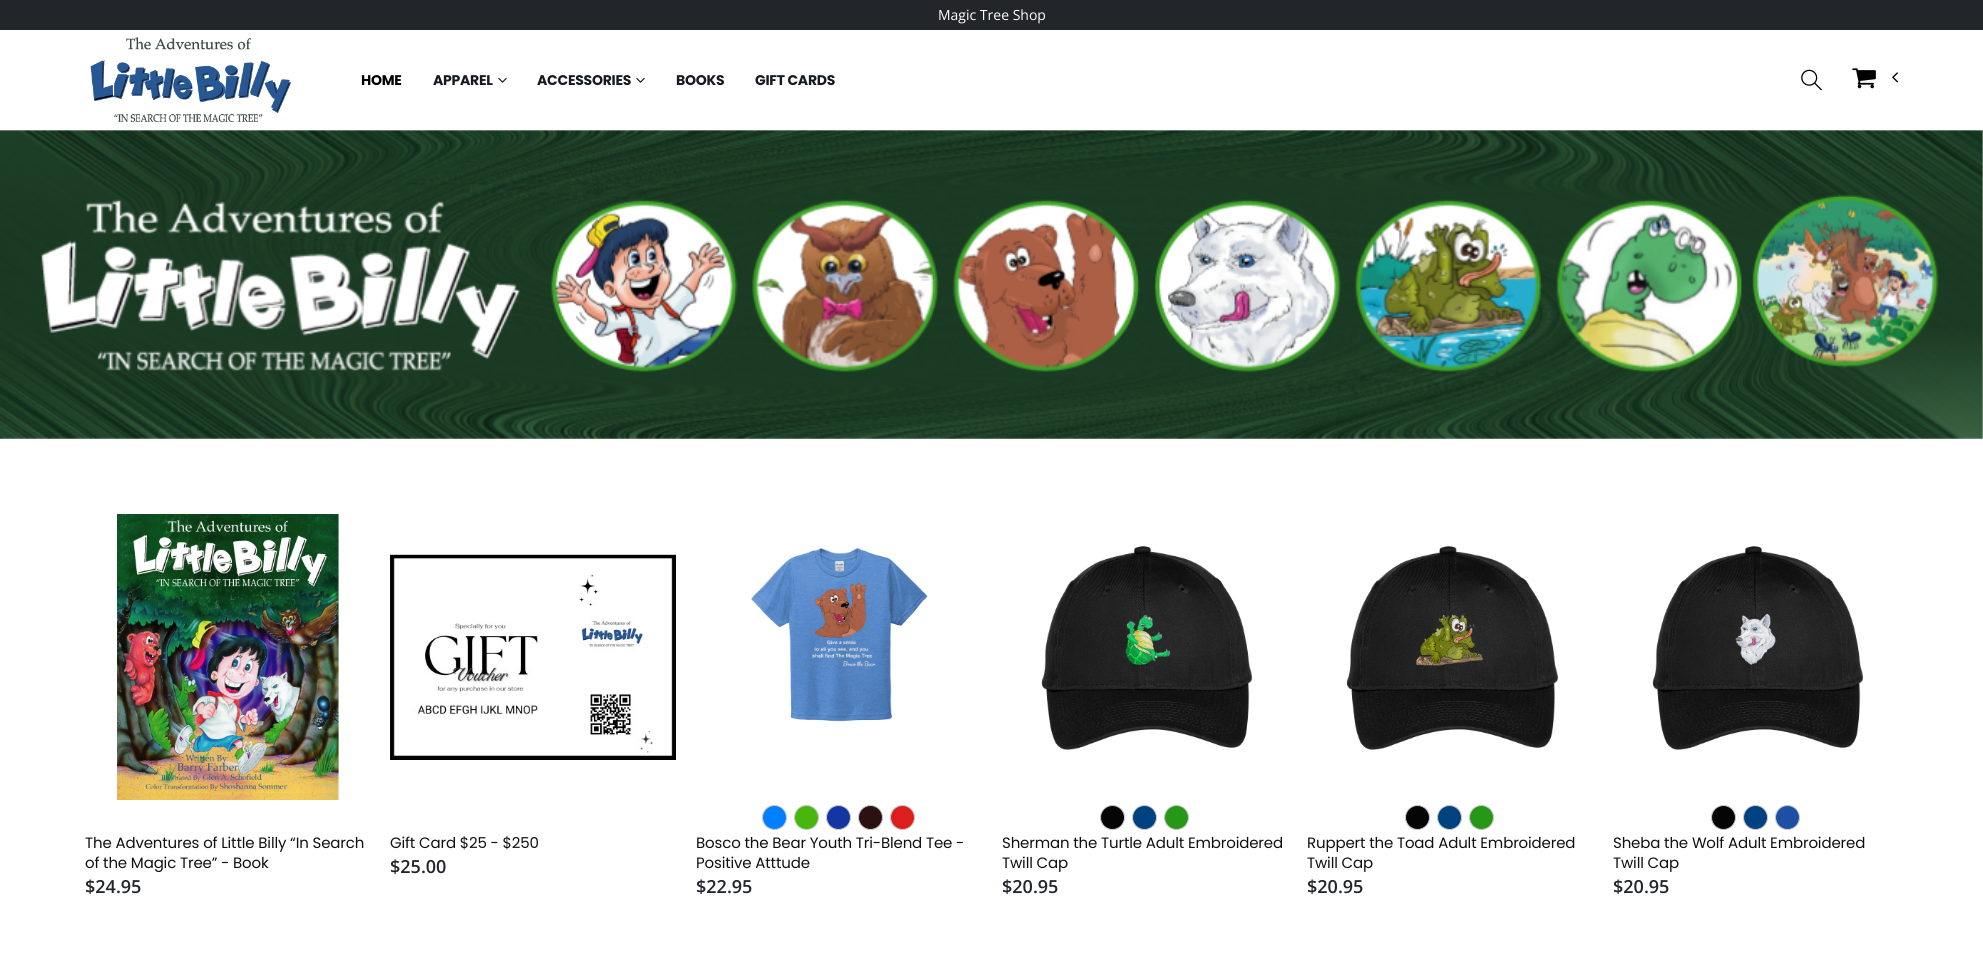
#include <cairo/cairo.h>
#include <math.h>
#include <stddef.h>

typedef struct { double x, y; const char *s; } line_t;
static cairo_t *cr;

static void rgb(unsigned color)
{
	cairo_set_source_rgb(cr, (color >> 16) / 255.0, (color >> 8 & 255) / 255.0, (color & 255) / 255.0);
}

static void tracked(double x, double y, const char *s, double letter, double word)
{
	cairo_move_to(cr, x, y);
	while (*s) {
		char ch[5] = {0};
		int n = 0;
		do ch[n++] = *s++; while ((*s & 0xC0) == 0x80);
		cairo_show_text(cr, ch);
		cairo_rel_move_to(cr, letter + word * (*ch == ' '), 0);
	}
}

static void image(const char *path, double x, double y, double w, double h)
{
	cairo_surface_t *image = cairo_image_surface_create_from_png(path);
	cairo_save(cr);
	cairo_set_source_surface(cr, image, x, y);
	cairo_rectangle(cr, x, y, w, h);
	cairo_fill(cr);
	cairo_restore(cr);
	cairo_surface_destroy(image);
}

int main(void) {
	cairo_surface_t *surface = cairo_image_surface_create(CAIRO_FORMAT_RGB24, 1983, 957);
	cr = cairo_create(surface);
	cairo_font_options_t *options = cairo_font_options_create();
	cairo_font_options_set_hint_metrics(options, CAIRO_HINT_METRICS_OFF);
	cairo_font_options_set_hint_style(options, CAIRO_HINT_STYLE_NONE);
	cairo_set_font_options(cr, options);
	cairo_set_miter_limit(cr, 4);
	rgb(0xffffff);
	cairo_paint(cr);
	rgb(0x222529);
	cairo_rectangle(cr, 0, 0, 1983, 30);
	cairo_fill(cr);
	image("img/1.png", 90, 37, 202, 85);
	image("img/2.png", 498, 77, 9, 6);
	image("img/2.png", 636, 77, 9, 6);
	image("img/3.png", 1801, 69, 21, 22);
	image("img/4.png", 1852, 68, 24, 21);
	image("img/5.png", 1892, 72, 6, 11);
	image("img/6.png", 0, 130, 1983, 309);
	image("img/7.png", 117, 514, 222, 286);
	image("img/8.png", 390, 554, 286, 206);
	image("img/9.png", 751, 548, 177, 174);
	rgb(0x007fff);
	cairo_arc(cr, 774.5, 817.5, 12, 0, 2 * M_PI);
	cairo_fill_preserve(cr);
	rgb(0xc9c9c9);
	cairo_set_line_width(cr, 1);
	cairo_stroke(cr);
	rgb(0x48b70d);
	cairo_arc(cr, 806.5, 817.5, 12, 0, 2 * M_PI);
	cairo_fill_preserve(cr);
	rgb(0xc9c9c9);
	cairo_stroke(cr);
	rgb(0x1337a2);
	cairo_arc(cr, 838.5, 817.5, 12, 0, 2 * M_PI);
	cairo_fill_preserve(cr);
	rgb(0xc9c9c9);
	cairo_stroke(cr);
	rgb(0x2b1111);
	cairo_arc(cr, 870.5, 817.5, 12, 0, 2 * M_PI);
	cairo_fill_preserve(cr);
	rgb(0xc9c9c9);
	cairo_stroke(cr);
	rgb(0xdc1e1e);
	cairo_arc(cr, 902.5, 817.5, 12, 0, 2 * M_PI);
	cairo_fill_preserve(cr);
	rgb(0xc9c9c9);
	cairo_stroke(cr);
	image("img/10.png", 1041, 546, 211, 204);
	rgb(0x050505);
	cairo_arc(cr, 1112.5, 817.5, 12, 0, 2 * M_PI);
	cairo_fill_preserve(cr);
	rgb(0xc9c9c9);
	cairo_stroke(cr);
	rgb(0x004280);
	cairo_arc(cr, 1144.5, 817.5, 12, 0, 2 * M_PI);
	cairo_fill_preserve(cr);
	rgb(0xc9c9c9);
	cairo_stroke(cr);
	rgb(0x269717);
	cairo_arc(cr, 1176.5, 817.5, 12, 0, 2 * M_PI);
	cairo_fill_preserve(cr);
	rgb(0xc9c9c9);
	cairo_stroke(cr);
	image("img/11.png", 1346, 546, 212, 204);
	rgb(0x050505);
	cairo_arc(cr, 1417.5, 817.5, 12, 0, 2 * M_PI);
	cairo_fill_preserve(cr);
	rgb(0xc9c9c9);
	cairo_stroke(cr);
	rgb(0x004280);
	cairo_arc(cr, 1449.5, 817.5, 12, 0, 2 * M_PI);
	cairo_fill_preserve(cr);
	rgb(0xc9c9c9);
	cairo_stroke(cr);
	rgb(0x269717);
	cairo_arc(cr, 1481.5, 817.5, 12, 0, 2 * M_PI);
	cairo_fill_preserve(cr);
	rgb(0xc9c9c9);
	cairo_stroke(cr);
	image("img/12.png", 1652, 546, 211, 204);
	rgb(0x050505);
	cairo_arc(cr, 1723.5, 817.5, 12, 0, 2 * M_PI);
	cairo_fill_preserve(cr);
	rgb(0xc9c9c9);
	cairo_stroke(cr);
	rgb(0x004280);
	cairo_arc(cr, 1755.5, 817.5, 12, 0, 2 * M_PI);
	cairo_fill_preserve(cr);
	rgb(0xc9c9c9);
	cairo_stroke(cr);
	rgb(0x1d50a4);
	cairo_arc(cr, 1787.5, 817.5, 12, 0, 2 * M_PI);
	cairo_fill_preserve(cr);
	rgb(0xc9c9c9);
	cairo_stroke(cr);
	cairo_select_font_face(cr, "Open Sans", CAIRO_FONT_SLANT_NORMAL, CAIRO_FONT_WEIGHT_NORMAL);
	cairo_set_font_size(cr, 14);
	rgb(0xffffff);
	cairo_move_to(cr, 938, 20);
	cairo_show_text(cr, "Magic Tree Shop");
	cairo_select_font_face(cr, "Poppins", CAIRO_FONT_SLANT_NORMAL, CAIRO_FONT_WEIGHT_BOLD);
	rgb(0x000000);
	tracked(361, 85, "HOME", -0.25, 0);
	rgb(0x141a1f);
	{
		static const line_t items[] = {
			{433, 85, "APPAREL"},
			{537, 85, "ACCESSORIES"},
			{676, 85, "BOOKS"},
			{755, 85, "GIFT CARDS"},
		};
		for (size_t i = 0; i < sizeof items / sizeof *items; i++) {
			tracked(items[i].x, items[i].y, items[i].s, -0.25, 0);
		}
	}
	cairo_select_font_face(cr, "Poppins", CAIRO_FONT_SLANT_NORMAL, CAIRO_FONT_WEIGHT_NORMAL);
	cairo_set_font_size(cr, 15);
	rgb(0x101010);
	tracked(85, 848, "The Adventures of Little Billy “In Search", -0.15, 0);
	tracked(85, 868, "of the Magic Tree” - Book", -0.15, 0);
	cairo_select_font_face(cr, "Open Sans SemiBold", CAIRO_FONT_SLANT_NORMAL, CAIRO_FONT_WEIGHT_NORMAL);
	cairo_set_font_size(cr, 18);
	rgb(0x222529);
	cairo_move_to(cr, 85, 893);
	cairo_show_text(cr, "$24.95");
	cairo_select_font_face(cr, "Poppins", CAIRO_FONT_SLANT_NORMAL, CAIRO_FONT_WEIGHT_NORMAL);
	cairo_set_font_size(cr, 15);
	rgb(0x101010);
	tracked(390, 848, "Gift Card $25 - $250", -0.15, 0);
	cairo_select_font_face(cr, "Open Sans SemiBold", CAIRO_FONT_SLANT_NORMAL, CAIRO_FONT_WEIGHT_NORMAL);
	cairo_set_font_size(cr, 18);
	rgb(0x222529);
	cairo_move_to(cr, 390, 873);
	cairo_show_text(cr, "$25.00");
	cairo_select_font_face(cr, "Poppins", CAIRO_FONT_SLANT_NORMAL, CAIRO_FONT_WEIGHT_NORMAL);
	cairo_set_font_size(cr, 15);
	rgb(0x101010);
	tracked(696, 848, "Bosco the Bear Youth Tri-Blend Tee -", -0.15, 0);
	tracked(696, 868, "Positive Atttude", -0.15, 0);
	cairo_select_font_face(cr, "Open Sans SemiBold", CAIRO_FONT_SLANT_NORMAL, CAIRO_FONT_WEIGHT_NORMAL);
	cairo_set_font_size(cr, 18);
	rgb(0x222529);
	cairo_move_to(cr, 696, 893);
	cairo_show_text(cr, "$22.95");
	cairo_select_font_face(cr, "Poppins", CAIRO_FONT_SLANT_NORMAL, CAIRO_FONT_WEIGHT_NORMAL);
	cairo_set_font_size(cr, 15);
	rgb(0x101010);
	tracked(1002, 848, "Sherman the Turtle Adult Embroidered", -0.15, 0);
	tracked(1002, 868, "Twill Cap", -0.15, 0);
	cairo_select_font_face(cr, "Open Sans SemiBold", CAIRO_FONT_SLANT_NORMAL, CAIRO_FONT_WEIGHT_NORMAL);
	cairo_set_font_size(cr, 18);
	rgb(0x222529);
	cairo_move_to(cr, 1002, 893);
	cairo_show_text(cr, "$20.95");
	cairo_select_font_face(cr, "Poppins", CAIRO_FONT_SLANT_NORMAL, CAIRO_FONT_WEIGHT_NORMAL);
	cairo_set_font_size(cr, 15);
	rgb(0x101010);
	tracked(1307, 848, "Ruppert the Toad Adult Embroidered", -0.15, 0);
	tracked(1307, 868, "Twill Cap", -0.15, 0);
	cairo_select_font_face(cr, "Open Sans SemiBold", CAIRO_FONT_SLANT_NORMAL, CAIRO_FONT_WEIGHT_NORMAL);
	cairo_set_font_size(cr, 18);
	rgb(0x222529);
	cairo_move_to(cr, 1307, 893);
	cairo_show_text(cr, "$20.95");
	cairo_select_font_face(cr, "Poppins", CAIRO_FONT_SLANT_NORMAL, CAIRO_FONT_WEIGHT_NORMAL);
	cairo_set_font_size(cr, 15);
	rgb(0x101010);
	tracked(1613, 848, "Sheba the Wolf Adult Embroidered", -0.15, 0);
	tracked(1613, 868, "Twill Cap", -0.15, 0);
	cairo_select_font_face(cr, "Open Sans SemiBold", CAIRO_FONT_SLANT_NORMAL, CAIRO_FONT_WEIGHT_NORMAL);
	cairo_set_font_size(cr, 18);
	rgb(0x222529);
	cairo_move_to(cr, 1613, 893);
	cairo_show_text(cr, "$20.95");
	cairo_surface_write_to_png(surface, "page.png");
	cairo_font_options_destroy(options);
	cairo_destroy(cr);
	cairo_surface_destroy(surface);
	return 0;
}
